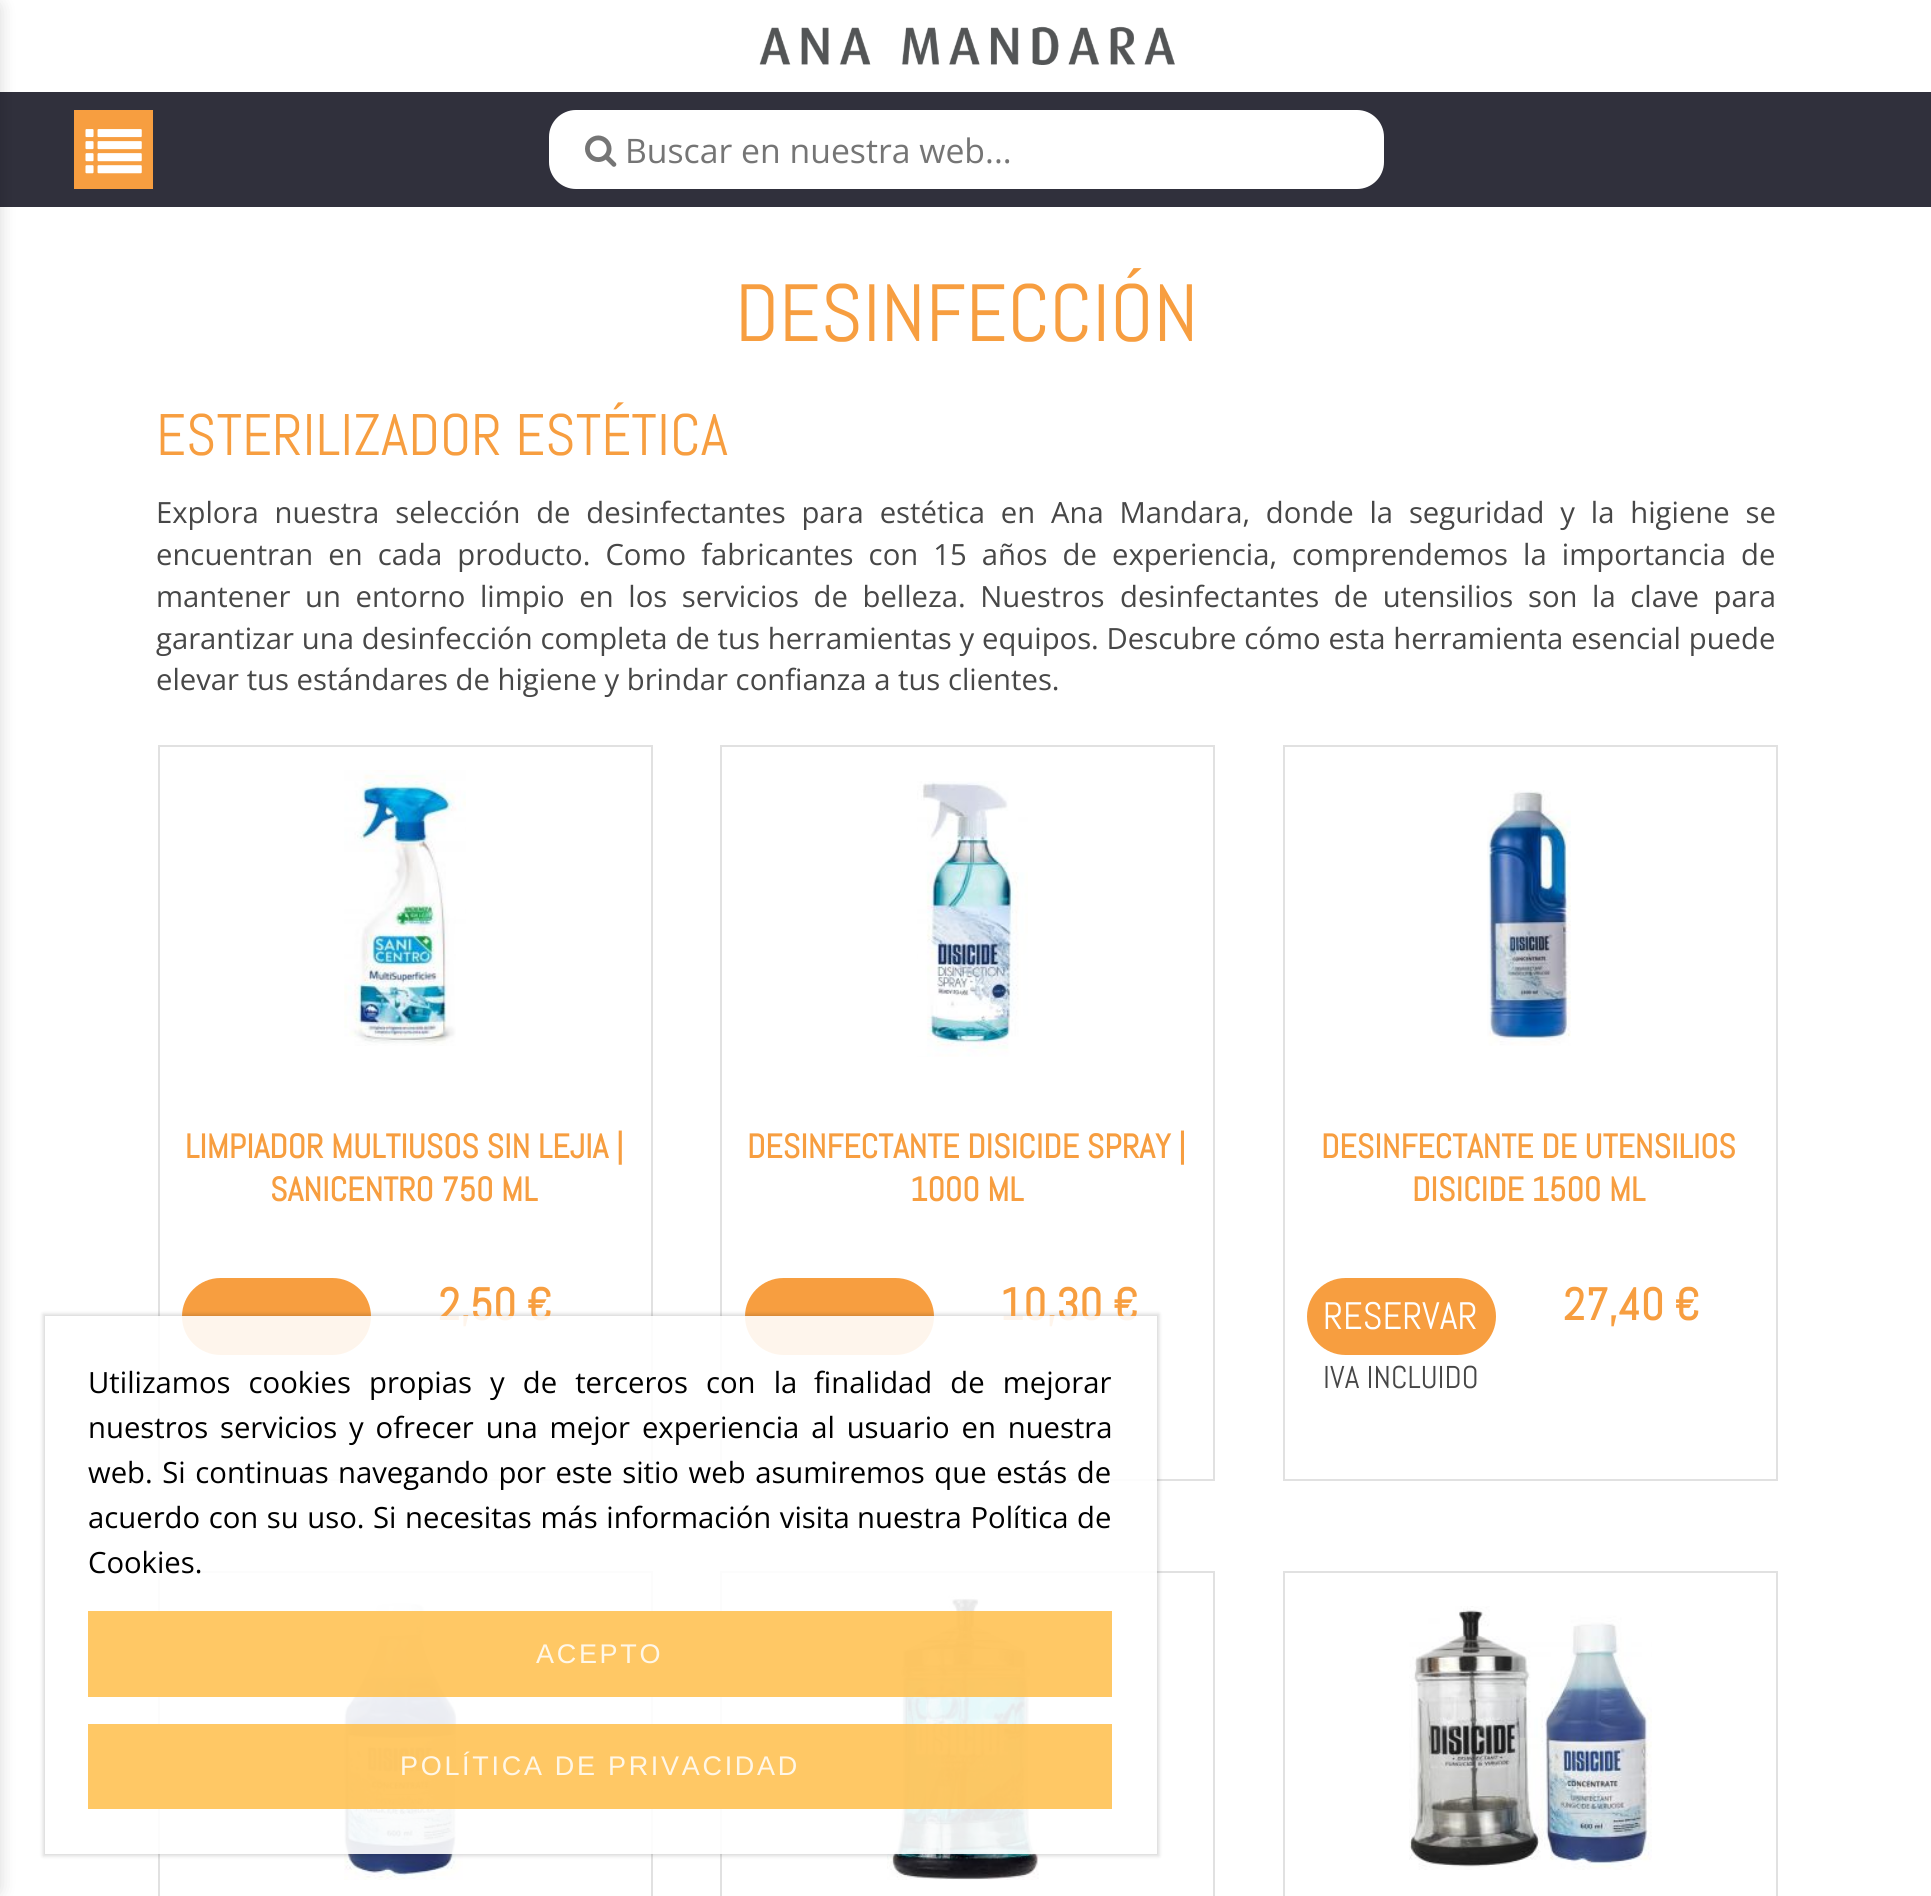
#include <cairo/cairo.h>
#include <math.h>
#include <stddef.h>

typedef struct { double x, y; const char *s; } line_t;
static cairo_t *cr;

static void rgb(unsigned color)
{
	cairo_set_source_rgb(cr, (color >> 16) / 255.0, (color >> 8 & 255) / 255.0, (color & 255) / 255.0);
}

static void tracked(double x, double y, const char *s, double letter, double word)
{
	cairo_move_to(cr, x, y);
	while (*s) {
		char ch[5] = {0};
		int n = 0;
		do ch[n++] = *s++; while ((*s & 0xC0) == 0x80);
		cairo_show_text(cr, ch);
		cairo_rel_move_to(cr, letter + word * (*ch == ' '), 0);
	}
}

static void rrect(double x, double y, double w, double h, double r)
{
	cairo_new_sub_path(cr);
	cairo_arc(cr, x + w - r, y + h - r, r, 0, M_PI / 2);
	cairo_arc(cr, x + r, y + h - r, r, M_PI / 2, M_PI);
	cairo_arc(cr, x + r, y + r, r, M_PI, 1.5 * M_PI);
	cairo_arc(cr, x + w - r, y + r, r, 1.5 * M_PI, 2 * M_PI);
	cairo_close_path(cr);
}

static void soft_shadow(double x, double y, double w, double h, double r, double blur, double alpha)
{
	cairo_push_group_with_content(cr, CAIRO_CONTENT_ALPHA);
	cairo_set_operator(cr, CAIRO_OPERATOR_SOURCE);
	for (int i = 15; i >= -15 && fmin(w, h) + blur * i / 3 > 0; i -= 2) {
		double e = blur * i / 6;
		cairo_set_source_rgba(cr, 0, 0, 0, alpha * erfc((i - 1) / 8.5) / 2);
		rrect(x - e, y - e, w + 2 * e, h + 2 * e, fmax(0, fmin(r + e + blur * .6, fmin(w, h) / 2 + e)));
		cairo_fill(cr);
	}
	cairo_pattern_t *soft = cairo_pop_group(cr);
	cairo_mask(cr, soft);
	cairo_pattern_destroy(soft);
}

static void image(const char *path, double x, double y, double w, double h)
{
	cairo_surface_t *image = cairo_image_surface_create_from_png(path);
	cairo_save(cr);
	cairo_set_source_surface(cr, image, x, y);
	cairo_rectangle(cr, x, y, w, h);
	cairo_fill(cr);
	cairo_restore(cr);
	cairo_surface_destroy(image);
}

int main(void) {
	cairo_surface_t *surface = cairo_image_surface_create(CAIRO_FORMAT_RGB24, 1931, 1896);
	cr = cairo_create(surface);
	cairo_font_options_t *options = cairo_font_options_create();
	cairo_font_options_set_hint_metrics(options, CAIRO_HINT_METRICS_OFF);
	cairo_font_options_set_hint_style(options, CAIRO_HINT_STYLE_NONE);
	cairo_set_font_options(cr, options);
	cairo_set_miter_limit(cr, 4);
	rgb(0xffffff);
	cairo_paint(cr);
	rgb(0x30303c);
	cairo_rectangle(cr, 0, 92, 1931, 115);
	cairo_fill(cr);
	rgb(0x000000);
	soft_shadow(-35, 0, 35, 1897, 9, 8.5, 0.15);
	image("img/1.png", 759, 26, 416, 39);
	rgb(0xf79e40);
	cairo_rectangle(cr, 74, 110, 79, 79);
	cairo_fill(cr);
	image("img/2.png", 85, 129, 57, 45);
	rgb(0xffffff);
	rrect(551.5, 112.5, 830, 74, 24.5);
	cairo_fill_preserve(cr);
	cairo_set_line_width(cr, 5);
	cairo_stroke(cr);
	image("img/3.png", 585, 135, 32, 32);
	cairo_rectangle(cr, 159, 746, 493, 734);
	rgb(0xe1e1e1);
	cairo_set_line_width(cr, 2);
	cairo_stroke(cr);
	image("img/4.png", 344, 770, 122, 276);
	rgb(0xf79e40);
	rrect(182, 1278, 189, 77, 38.5);
	cairo_fill(cr);
	cairo_rectangle(cr, 721, 746, 493, 734);
	rgb(0xe1e1e1);
	cairo_stroke(cr);
	image("img/5.png", 917, 781, 111, 276);
	rgb(0xf79e40);
	rrect(745, 1278, 189, 77, 38.5);
	cairo_fill(cr);
	cairo_rectangle(cr, 1284, 746, 493, 734);
	rgb(0xe1e1e1);
	cairo_stroke(cr);
	image("img/6.png", 1487, 790, 84, 256);
	rgb(0xf79e40);
	rrect(1307, 1278, 189, 77, 38.5);
	cairo_fill(cr);
	cairo_rectangle(cr, 159, 1572, 493, 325);
	rgb(0xe1e1e1);
	cairo_stroke(cr);
	image("img/7.png", 344, 1603, 119, 277);
	cairo_rectangle(cr, 721, 1572, 493, 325);
	cairo_stroke(cr);
	image("img/8.png", 887, 1595, 152, 285);
	cairo_rectangle(cr, 1284, 1572, 493, 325);
	cairo_stroke(cr);
	image("img/9.png", 1409, 1606, 243, 264);
	cairo_save(cr);
	cairo_set_fill_rule(cr, CAIRO_FILL_RULE_EVEN_ODD);
	cairo_new_path(cr);
	cairo_move_to(cr, 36, 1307);
	cairo_line_to(cr, 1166, 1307);
	cairo_line_to(cr, 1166, 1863);
	cairo_line_to(cr, 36, 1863);
	cairo_close_path(cr);
	cairo_move_to(cr, 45, 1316);
	cairo_line_to(cr, 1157, 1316);
	cairo_line_to(cr, 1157, 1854);
	cairo_line_to(cr, 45, 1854);
	cairo_close_path(cr);
	cairo_clip(cr);
	rgb(0x000000);
	soft_shadow(43, 1314, 1116, 542, 0, 2, 0.15);
	cairo_restore(cr);
	cairo_select_font_face(cr, "Open Sans", CAIRO_FONT_SLANT_NORMAL, CAIRO_FONT_WEIGHT_NORMAL);
	cairo_set_font_size(cr, 33.75);
	rgb(0x757575);
	cairo_move_to(cr, 625, 163);
	cairo_show_text(cr, "Buscar en nuestra web...");
	cairo_select_font_face(cr, "Abel", CAIRO_FONT_SLANT_NORMAL, CAIRO_FONT_WEIGHT_NORMAL);
	cairo_set_font_size(cr, 81);
	rgb(0xf79e40);
	cairo_move_to(cr, 735, 341);
	cairo_show_text(cr, "DESINFECCIÓN");
	cairo_set_font_size(cr, 58.5);
	cairo_move_to(cr, 156, 455);
	cairo_show_text(cr, "ESTERILIZADOR ESTÉTICA");
	cairo_select_font_face(cr, "Open Sans", CAIRO_FONT_SLANT_NORMAL, CAIRO_FONT_WEIGHT_NORMAL);
	cairo_set_font_size(cr, 29.25);
	rgb(0x474747);
	tracked(156, 523, "Explora nuestra selección de desinfectantes para estética en Ana Mandara, donde la seguridad y la higiene se", 0, 8.25);
	tracked(156, 565, "encuentran en cada producto. Como fabricantes con 15 años de experiencia, comprendemos la importancia de", 0, 7.5);
	{
		static const line_t items[] = {
			{156, 607, "mantener un entorno limpio en los servicios de belleza. Nuestros"},
			{1120, 607, "desinfectantes de utensilios"},
			{1528, 607, "son la clave para"},
		};
		for (size_t i = 0; i < sizeof items / sizeof *items; i++) {
			tracked(items[i].x, items[i].y, items[i].s, 0, 7);
		}
	}
	tracked(156, 649, "garantizar una desinfección completa de tus herramientas y equipos. Descubre cómo esta herramienta esencial puede", 0, 0.25);
	cairo_move_to(cr, 156, 690);
	cairo_show_text(cr, "elevar tus estándares de higiene y brindar confianza a tus clientes.");
	cairo_select_font_face(cr, "Abel", CAIRO_FONT_SLANT_NORMAL, CAIRO_FONT_WEIGHT_BOLD);
	cairo_set_font_size(cr, 33.75);
	rgb(0xf79e40);
	cairo_move_to(cr, 185, 1158);
	cairo_show_text(cr, "LIMPIADOR MULTIUSOS SIN LEJIA |");
	cairo_move_to(cr, 270, 1201);
	cairo_show_text(cr, "SANICENTRO 750 ML");
	cairo_set_font_size(cr, 45);
	cairo_move_to(cr, 438, 1320);
	cairo_show_text(cr, "2,50 €");
	cairo_set_font_size(cr, 33.75);
	cairo_move_to(cr, 747, 1158);
	cairo_show_text(cr, "DESINFECTANTE DISICIDE SPRAY |");
	cairo_move_to(cr, 910, 1201);
	cairo_show_text(cr, "1000 ML");
	cairo_set_font_size(cr, 45);
	cairo_move_to(cr, 1000, 1320);
	cairo_show_text(cr, "10,30 €");
	cairo_set_font_size(cr, 33.75);
	cairo_move_to(cr, 1321, 1158);
	cairo_show_text(cr, "DESINFECTANTE DE UTENSILIOS");
	cairo_move_to(cr, 1412, 1201);
	cairo_show_text(cr, "DISICIDE 1500 ML");
	cairo_select_font_face(cr, "Abel", CAIRO_FONT_SLANT_NORMAL, CAIRO_FONT_WEIGHT_NORMAL);
	cairo_set_font_size(cr, 38.25);
	rgb(0xffffff);
	cairo_move_to(cr, 1323, 1329);
	cairo_show_text(cr, "RESERVAR");
	cairo_set_font_size(cr, 31.5);
	rgb(0x474747);
	cairo_move_to(cr, 1323, 1388);
	cairo_show_text(cr, "IVA INCLUIDO");
	cairo_select_font_face(cr, "Abel", CAIRO_FONT_SLANT_NORMAL, CAIRO_FONT_WEIGHT_BOLD);
	cairo_set_font_size(cr, 45);
	rgb(0xf79e40);
	cairo_move_to(cr, 1563, 1320);
	cairo_show_text(cr, "27,40 €");
	cairo_set_source_rgba(cr, 1, 1, 1, 0.9);
	cairo_rectangle(cr, 45, 1316, 1112, 538);
	cairo_fill(cr);
	cairo_select_font_face(cr, "Open Sans", CAIRO_FONT_SLANT_NORMAL, CAIRO_FONT_WEIGHT_NORMAL);
	cairo_set_font_size(cr, 29.25);
	rgb(0x000000);
	tracked(88, 1393, "Utilizamos cookies propias y de terceros con la", 0, 10.5);
	tracked(814, 1393, "finalidad de mejorar", 0, 10.5);
	tracked(88, 1438, "nuestros servicios y ofrecer una mejor experiencia al usuario en nuestra", 0, 4.25);
	tracked(88, 1483, "web. Si continuas", 0, 2);
	tracked(338, 1483, "navegando por este sitio web asumiremos que estás de", 0, 2);
	tracked(88, 1528, "acuerdo con su uso. Si necesitas más información visita", 0, 1);
	tracked(857, 1528, "nuestra Política de", 0, 1);
	cairo_move_to(cr, 88, 1573);
	cairo_show_text(cr, "Cookies.");
	cairo_set_source_rgba(cr, 1, 0.745, 0.29, 0.85);
	cairo_rectangle(cr, 88, 1611, 1024, 86);
	cairo_fill(cr);
	cairo_select_font_face(cr, "Liberation Sans", CAIRO_FONT_SLANT_NORMAL, CAIRO_FONT_WEIGHT_NORMAL);
	cairo_set_font_size(cr, 27);
	rgb(0xfff7e8);
	tracked(536, 1663, "ACEPTO", 2.7, 0);
	cairo_set_source_rgba(cr, 1, 0.745, 0.29, 0.85);
	cairo_rectangle(cr, 88, 1724, 1024, 85);
	cairo_fill(cr);
	rgb(0xfff7e8);
	tracked(400, 1775, "POLÍTICA DE PRIVACIDAD", 2.7, 0);
	cairo_surface_write_to_png(surface, "page.png");
	cairo_font_options_destroy(options);
	cairo_destroy(cr);
	cairo_surface_destroy(surface);
	return 0;
}
